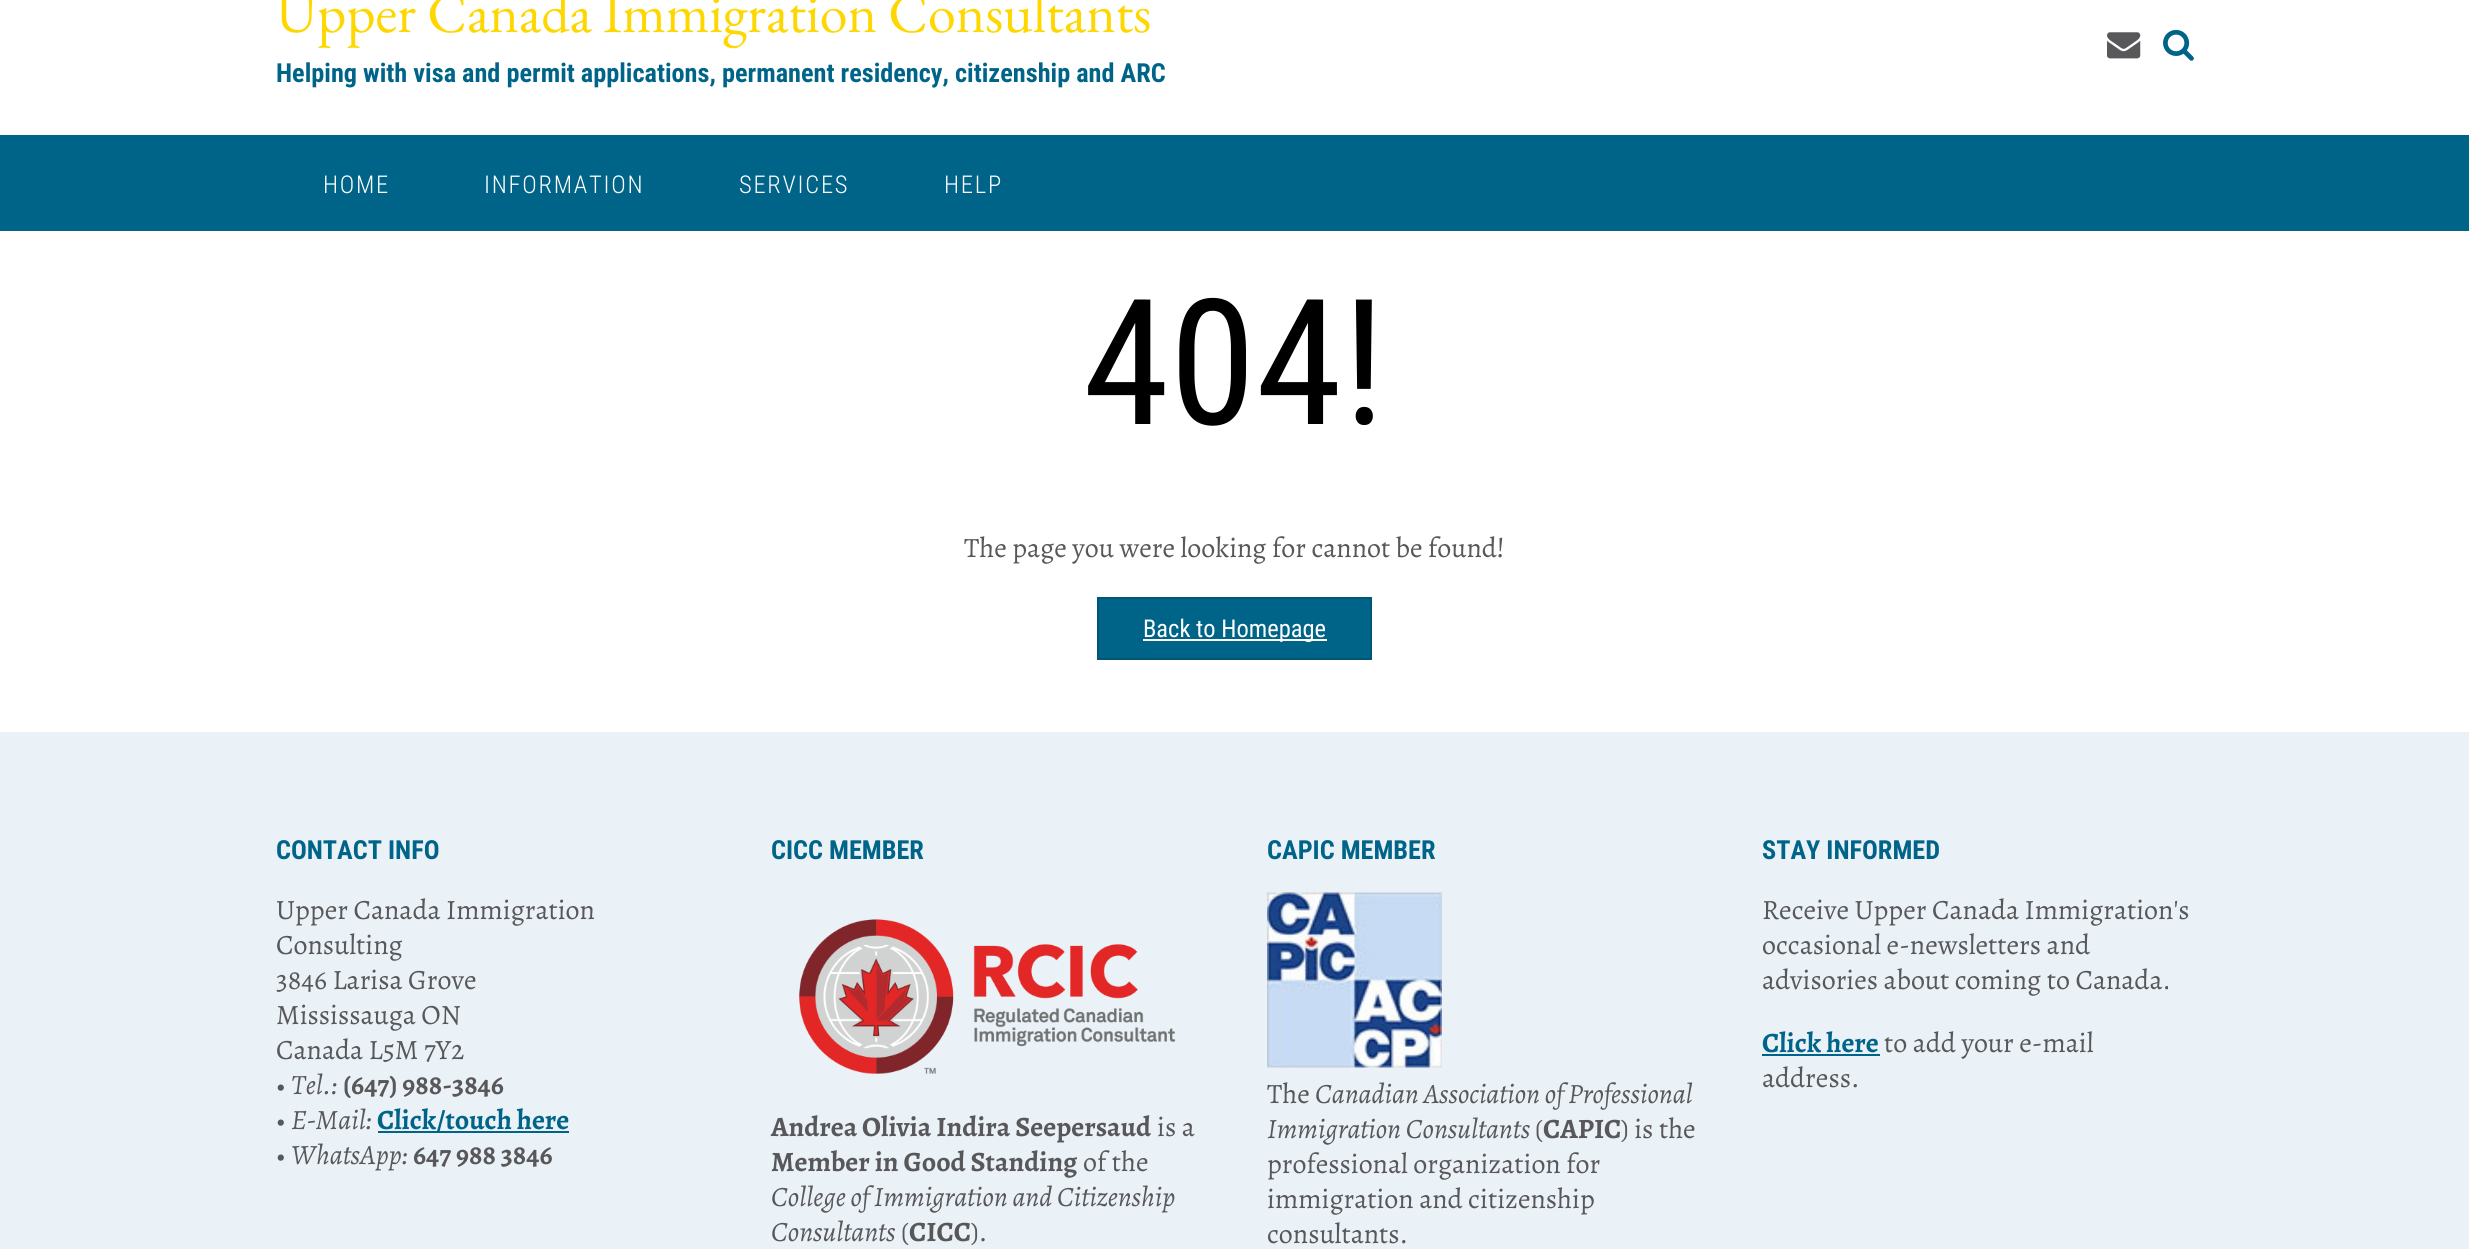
#include <cairo/cairo.h>
#include <math.h>
#include <stddef.h>

typedef struct { double x, y; const char *s; } line_t;
typedef struct { double x, y, w, h; unsigned color; } box_t;
static cairo_t *cr;

static void rgb(unsigned color)
{
	cairo_set_source_rgb(cr, (color >> 16) / 255.0, (color >> 8 & 255) / 255.0, (color & 255) / 255.0);
}

static void tracked(double x, double y, const char *s, double letter, double word)
{
	cairo_move_to(cr, x, y);
	while (*s) {
		char ch[5] = {0};
		int n = 0;
		do ch[n++] = *s++; while ((*s & 0xC0) == 0x80);
		cairo_show_text(cr, ch);
		cairo_rel_move_to(cr, letter + word * (*ch == ' '), 0);
	}
}

static void image(const char *path, double x, double y, double w, double h)
{
	cairo_surface_t *image = cairo_image_surface_create_from_png(path);
	cairo_save(cr);
	cairo_set_source_surface(cr, image, x, y);
	cairo_rectangle(cr, x, y, w, h);
	cairo_fill(cr);
	cairo_restore(cr);
	cairo_surface_destroy(image);
}

int main(void) {
	cairo_surface_t *surface = cairo_image_surface_create(CAIRO_FORMAT_RGB24, 2469, 1249);
	cr = cairo_create(surface);
	cairo_font_options_t *options = cairo_font_options_create();
	cairo_font_options_set_hint_metrics(options, CAIRO_HINT_METRICS_OFF);
	cairo_font_options_set_hint_style(options, CAIRO_HINT_STYLE_NONE);
	cairo_set_font_options(cr, options);
	cairo_set_miter_limit(cr, 4);
	rgb(0xffffff);
	cairo_paint(cr);
	image("img/1.png", 2107, 32, 34, 27);
	image("img/2.png", 2163, 29, 31, 32);
	rgb(0x006489);
	cairo_rectangle(cr, 0, 135, 2469, 96);
	cairo_fill(cr);
	cairo_rectangle(cr, 1098, 598, 273, 61);
	cairo_fill_preserve(cr);
	rgb(0x005676);
	cairo_stroke(cr);
	{
		static const box_t items[] = {
			{1143, 639, 184, 2, 0xffffff},
			{0, 732, 2469, 517, 0xeaf1f7},
			{378, 1131, 191, 2, 0x006489},
		};
		for (size_t i = 0; i < sizeof items / sizeof *items; i++) {
			rgb(items[i].color);
			cairo_rectangle(cr, items[i].x, items[i].y, items[i].w, items[i].h);
			cairo_fill(cr);
		}
	}
	image("img/3.png", 799, 919, 377, 155);
	image("img/4.png", 1267, 892, 175, 176);
	cairo_rectangle(cr, 1762, 1054, 118, 2);
	cairo_fill(cr);
	cairo_select_font_face(cr, "EB Garamond", CAIRO_FONT_SLANT_NORMAL, CAIRO_FONT_WEIGHT_NORMAL);
	cairo_set_font_size(cr, 56);
	rgb(0xffd700);
	cairo_move_to(cr, 276, 32);
	cairo_show_text(cr, "Upper Canada Immigration Consultants");
	cairo_select_font_face(cr, "Roboto Condensed", CAIRO_FONT_SLANT_NORMAL, CAIRO_FONT_WEIGHT_BOLD);
	cairo_set_font_size(cr, 26.25);
	rgb(0x006489);
	cairo_move_to(cr, 276, 82);
	cairo_show_text(cr, "Helping with visa and permit applications, permanent residency, citizenship and ARC");
	cairo_select_font_face(cr, "Roboto Condensed Light", CAIRO_FONT_SLANT_NORMAL, CAIRO_FONT_WEIGHT_NORMAL);
	cairo_set_font_size(cr, 24.5);
	rgb(0xffffff);
	{
		static const line_t items[] = {
			{323, 193, "HOME"},
			{484, 193, "INFORMATION"},
			{739, 193, "SERVICES"},
			{944, 193, "HELP"},
		};
		for (size_t i = 0; i < sizeof items / sizeof *items; i++) {
			tracked(items[i].x, items[i].y, items[i].s, 1.75, 0);
		}
	}
	cairo_select_font_face(cr, "Roboto Condensed", CAIRO_FONT_SLANT_NORMAL, CAIRO_FONT_WEIGHT_NORMAL);
	cairo_set_font_size(cr, 175);
	rgb(0x000000);
	cairo_move_to(cr, 1083, 424);
	cairo_show_text(cr, "404!");
	cairo_select_font_face(cr, "Alegreya", CAIRO_FONT_SLANT_NORMAL, CAIRO_FONT_WEIGHT_NORMAL);
	cairo_set_font_size(cr, 28);
	rgb(0x58585a);
	cairo_move_to(cr, 964, 557);
	cairo_show_text(cr, "The page you were looking for cannot be found!");
	cairo_select_font_face(cr, "Roboto Condensed", CAIRO_FONT_SLANT_NORMAL, CAIRO_FONT_WEIGHT_NORMAL);
	cairo_set_font_size(cr, 24.5);
	rgb(0xffffff);
	cairo_move_to(cr, 1143, 637);
	cairo_show_text(cr, "Back to Homepage");
	cairo_select_font_face(cr, "Roboto Condensed", CAIRO_FONT_SLANT_NORMAL, CAIRO_FONT_WEIGHT_BOLD);
	cairo_set_font_size(cr, 26.25);
	rgb(0x006489);
	cairo_move_to(cr, 276, 859);
	cairo_show_text(cr, "CONTACT INFO");
	cairo_select_font_face(cr, "Alegreya", CAIRO_FONT_SLANT_NORMAL, CAIRO_FONT_WEIGHT_NORMAL);
	cairo_set_font_size(cr, 28);
	rgb(0x58585a);
	{
		static const line_t items[] = {
			{276, 919, "Upper Canada Immigration"},
			{276, 954, "Consulting"},
			{276, 989, "3846 Larisa Grove"},
			{276, 1024, "Mississauga ON"},
			{276, 1059, "Canada L5M 7Y2"},
			{276, 1094, "•"},
		};
		for (size_t i = 0; i < sizeof items / sizeof *items; i++) {
			cairo_move_to(cr, items[i].x, items[i].y);
			cairo_show_text(cr, items[i].s);
		}
	}
	cairo_select_font_face(cr, "Alegreya", CAIRO_FONT_SLANT_ITALIC, CAIRO_FONT_WEIGHT_NORMAL);
	cairo_move_to(cr, 291, 1094);
	cairo_show_text(cr, "Tel.:");
	cairo_select_font_face(cr, "Alegreya", CAIRO_FONT_SLANT_NORMAL, CAIRO_FONT_WEIGHT_BOLD);
	cairo_move_to(cr, 343, 1094);
	cairo_show_text(cr, "(647) 988-3846");
	cairo_select_font_face(cr, "Alegreya", CAIRO_FONT_SLANT_NORMAL, CAIRO_FONT_WEIGHT_NORMAL);
	cairo_move_to(cr, 276, 1129);
	cairo_show_text(cr, "•");
	cairo_select_font_face(cr, "Alegreya", CAIRO_FONT_SLANT_ITALIC, CAIRO_FONT_WEIGHT_NORMAL);
	cairo_move_to(cr, 291, 1129);
	cairo_show_text(cr, "E-Mail:");
	cairo_select_font_face(cr, "Alegreya", CAIRO_FONT_SLANT_NORMAL, CAIRO_FONT_WEIGHT_BOLD);
	rgb(0x006489);
	cairo_move_to(cr, 377, 1129);
	cairo_show_text(cr, "Click/touch here");
	cairo_select_font_face(cr, "Alegreya", CAIRO_FONT_SLANT_NORMAL, CAIRO_FONT_WEIGHT_NORMAL);
	rgb(0x58585a);
	cairo_move_to(cr, 276, 1164);
	cairo_show_text(cr, "•");
	cairo_select_font_face(cr, "Alegreya", CAIRO_FONT_SLANT_ITALIC, CAIRO_FONT_WEIGHT_NORMAL);
	cairo_move_to(cr, 291, 1164);
	cairo_show_text(cr, "WhatsApp:");
	cairo_select_font_face(cr, "Alegreya", CAIRO_FONT_SLANT_NORMAL, CAIRO_FONT_WEIGHT_BOLD);
	cairo_move_to(cr, 413, 1164);
	cairo_show_text(cr, "647 988 3846");
	cairo_select_font_face(cr, "Roboto Condensed", CAIRO_FONT_SLANT_NORMAL, CAIRO_FONT_WEIGHT_BOLD);
	cairo_set_font_size(cr, 26.25);
	rgb(0x006489);
	cairo_move_to(cr, 771, 859);
	cairo_show_text(cr, "CICC MEMBER");
	cairo_select_font_face(cr, "Alegreya", CAIRO_FONT_SLANT_NORMAL, CAIRO_FONT_WEIGHT_BOLD);
	cairo_set_font_size(cr, 28);
	rgb(0x58585a);
	cairo_move_to(cr, 771, 1136);
	cairo_show_text(cr, "Andrea Olivia Indira Seepersaud");
	cairo_select_font_face(cr, "Alegreya", CAIRO_FONT_SLANT_NORMAL, CAIRO_FONT_WEIGHT_NORMAL);
	cairo_move_to(cr, 1157, 1136);
	cairo_show_text(cr, "is a");
	cairo_select_font_face(cr, "Alegreya", CAIRO_FONT_SLANT_NORMAL, CAIRO_FONT_WEIGHT_BOLD);
	cairo_move_to(cr, 771, 1171);
	cairo_show_text(cr, "Member in Good Standing");
	cairo_select_font_face(cr, "Alegreya", CAIRO_FONT_SLANT_NORMAL, CAIRO_FONT_WEIGHT_NORMAL);
	cairo_move_to(cr, 1083, 1171);
	cairo_show_text(cr, "of the");
	cairo_select_font_face(cr, "Alegreya", CAIRO_FONT_SLANT_ITALIC, CAIRO_FONT_WEIGHT_NORMAL);
	cairo_move_to(cr, 771, 1206);
	cairo_show_text(cr, "College of Immigration and Citizenship");
	cairo_move_to(cr, 771, 1241);
	cairo_show_text(cr, "Consultants");
	cairo_select_font_face(cr, "Alegreya", CAIRO_FONT_SLANT_NORMAL, CAIRO_FONT_WEIGHT_NORMAL);
	cairo_move_to(cr, 901, 1241);
	cairo_show_text(cr, "(");
	cairo_select_font_face(cr, "Alegreya", CAIRO_FONT_SLANT_NORMAL, CAIRO_FONT_WEIGHT_BOLD);
	cairo_move_to(cr, 909, 1241);
	cairo_show_text(cr, "CICC");
	cairo_select_font_face(cr, "Alegreya", CAIRO_FONT_SLANT_NORMAL, CAIRO_FONT_WEIGHT_NORMAL);
	cairo_move_to(cr, 971, 1241);
	cairo_show_text(cr, ").");
	cairo_select_font_face(cr, "Roboto Condensed", CAIRO_FONT_SLANT_NORMAL, CAIRO_FONT_WEIGHT_BOLD);
	cairo_set_font_size(cr, 26.25);
	rgb(0x006489);
	cairo_move_to(cr, 1267, 859);
	cairo_show_text(cr, "CAPIC MEMBER");
	cairo_select_font_face(cr, "Alegreya", CAIRO_FONT_SLANT_NORMAL, CAIRO_FONT_WEIGHT_NORMAL);
	cairo_set_font_size(cr, 28);
	rgb(0x58585a);
	cairo_move_to(cr, 1267, 1103);
	cairo_show_text(cr, "The");
	cairo_select_font_face(cr, "Alegreya", CAIRO_FONT_SLANT_ITALIC, CAIRO_FONT_WEIGHT_NORMAL);
	cairo_move_to(cr, 1315, 1103);
	cairo_show_text(cr, "Canadian Association of Professional");
	cairo_move_to(cr, 1267, 1138);
	cairo_show_text(cr, "Immigration Consultants");
	cairo_select_font_face(cr, "Alegreya", CAIRO_FONT_SLANT_NORMAL, CAIRO_FONT_WEIGHT_NORMAL);
	cairo_move_to(cr, 1535, 1138);
	cairo_show_text(cr, "(");
	cairo_select_font_face(cr, "Alegreya", CAIRO_FONT_SLANT_NORMAL, CAIRO_FONT_WEIGHT_BOLD);
	cairo_move_to(cr, 1543, 1138);
	cairo_show_text(cr, "CAPIC");
	cairo_select_font_face(cr, "Alegreya", CAIRO_FONT_SLANT_NORMAL, CAIRO_FONT_WEIGHT_NORMAL);
	{
		static const line_t items[] = {
			{1621, 1138, ") is the"},
			{1267, 1173, "professional organization for"},
			{1267, 1208, "immigration and citizenship"},
			{1267, 1243, "consultants."},
		};
		for (size_t i = 0; i < sizeof items / sizeof *items; i++) {
			cairo_move_to(cr, items[i].x, items[i].y);
			cairo_show_text(cr, items[i].s);
		}
	}
	cairo_select_font_face(cr, "Roboto Condensed", CAIRO_FONT_SLANT_NORMAL, CAIRO_FONT_WEIGHT_BOLD);
	cairo_set_font_size(cr, 26.25);
	rgb(0x006489);
	cairo_move_to(cr, 1762, 859);
	cairo_show_text(cr, "STAY INFORMED");
	cairo_select_font_face(cr, "Alegreya", CAIRO_FONT_SLANT_NORMAL, CAIRO_FONT_WEIGHT_NORMAL);
	cairo_set_font_size(cr, 28);
	rgb(0x58585a);
	{
		static const line_t items[] = {
			{1762, 919, "Receive Upper Canada Immigration's"},
			{1762, 954, "occasional e-newsletters and"},
			{1762, 989, "advisories about coming to Canada."},
		};
		for (size_t i = 0; i < sizeof items / sizeof *items; i++) {
			cairo_move_to(cr, items[i].x, items[i].y);
			cairo_show_text(cr, items[i].s);
		}
	}
	cairo_select_font_face(cr, "Alegreya", CAIRO_FONT_SLANT_NORMAL, CAIRO_FONT_WEIGHT_BOLD);
	rgb(0x006489);
	cairo_move_to(cr, 1762, 1052);
	cairo_show_text(cr, "Click here");
	cairo_select_font_face(cr, "Alegreya", CAIRO_FONT_SLANT_NORMAL, CAIRO_FONT_WEIGHT_NORMAL);
	rgb(0x58585a);
	cairo_move_to(cr, 1884, 1052);
	cairo_show_text(cr, "to add your e-mail");
	cairo_move_to(cr, 1762, 1087);
	cairo_show_text(cr, "address.");
	cairo_surface_write_to_png(surface, "page.png");
	cairo_font_options_destroy(options);
	cairo_destroy(cr);
	cairo_surface_destroy(surface);
	return 0;
}
